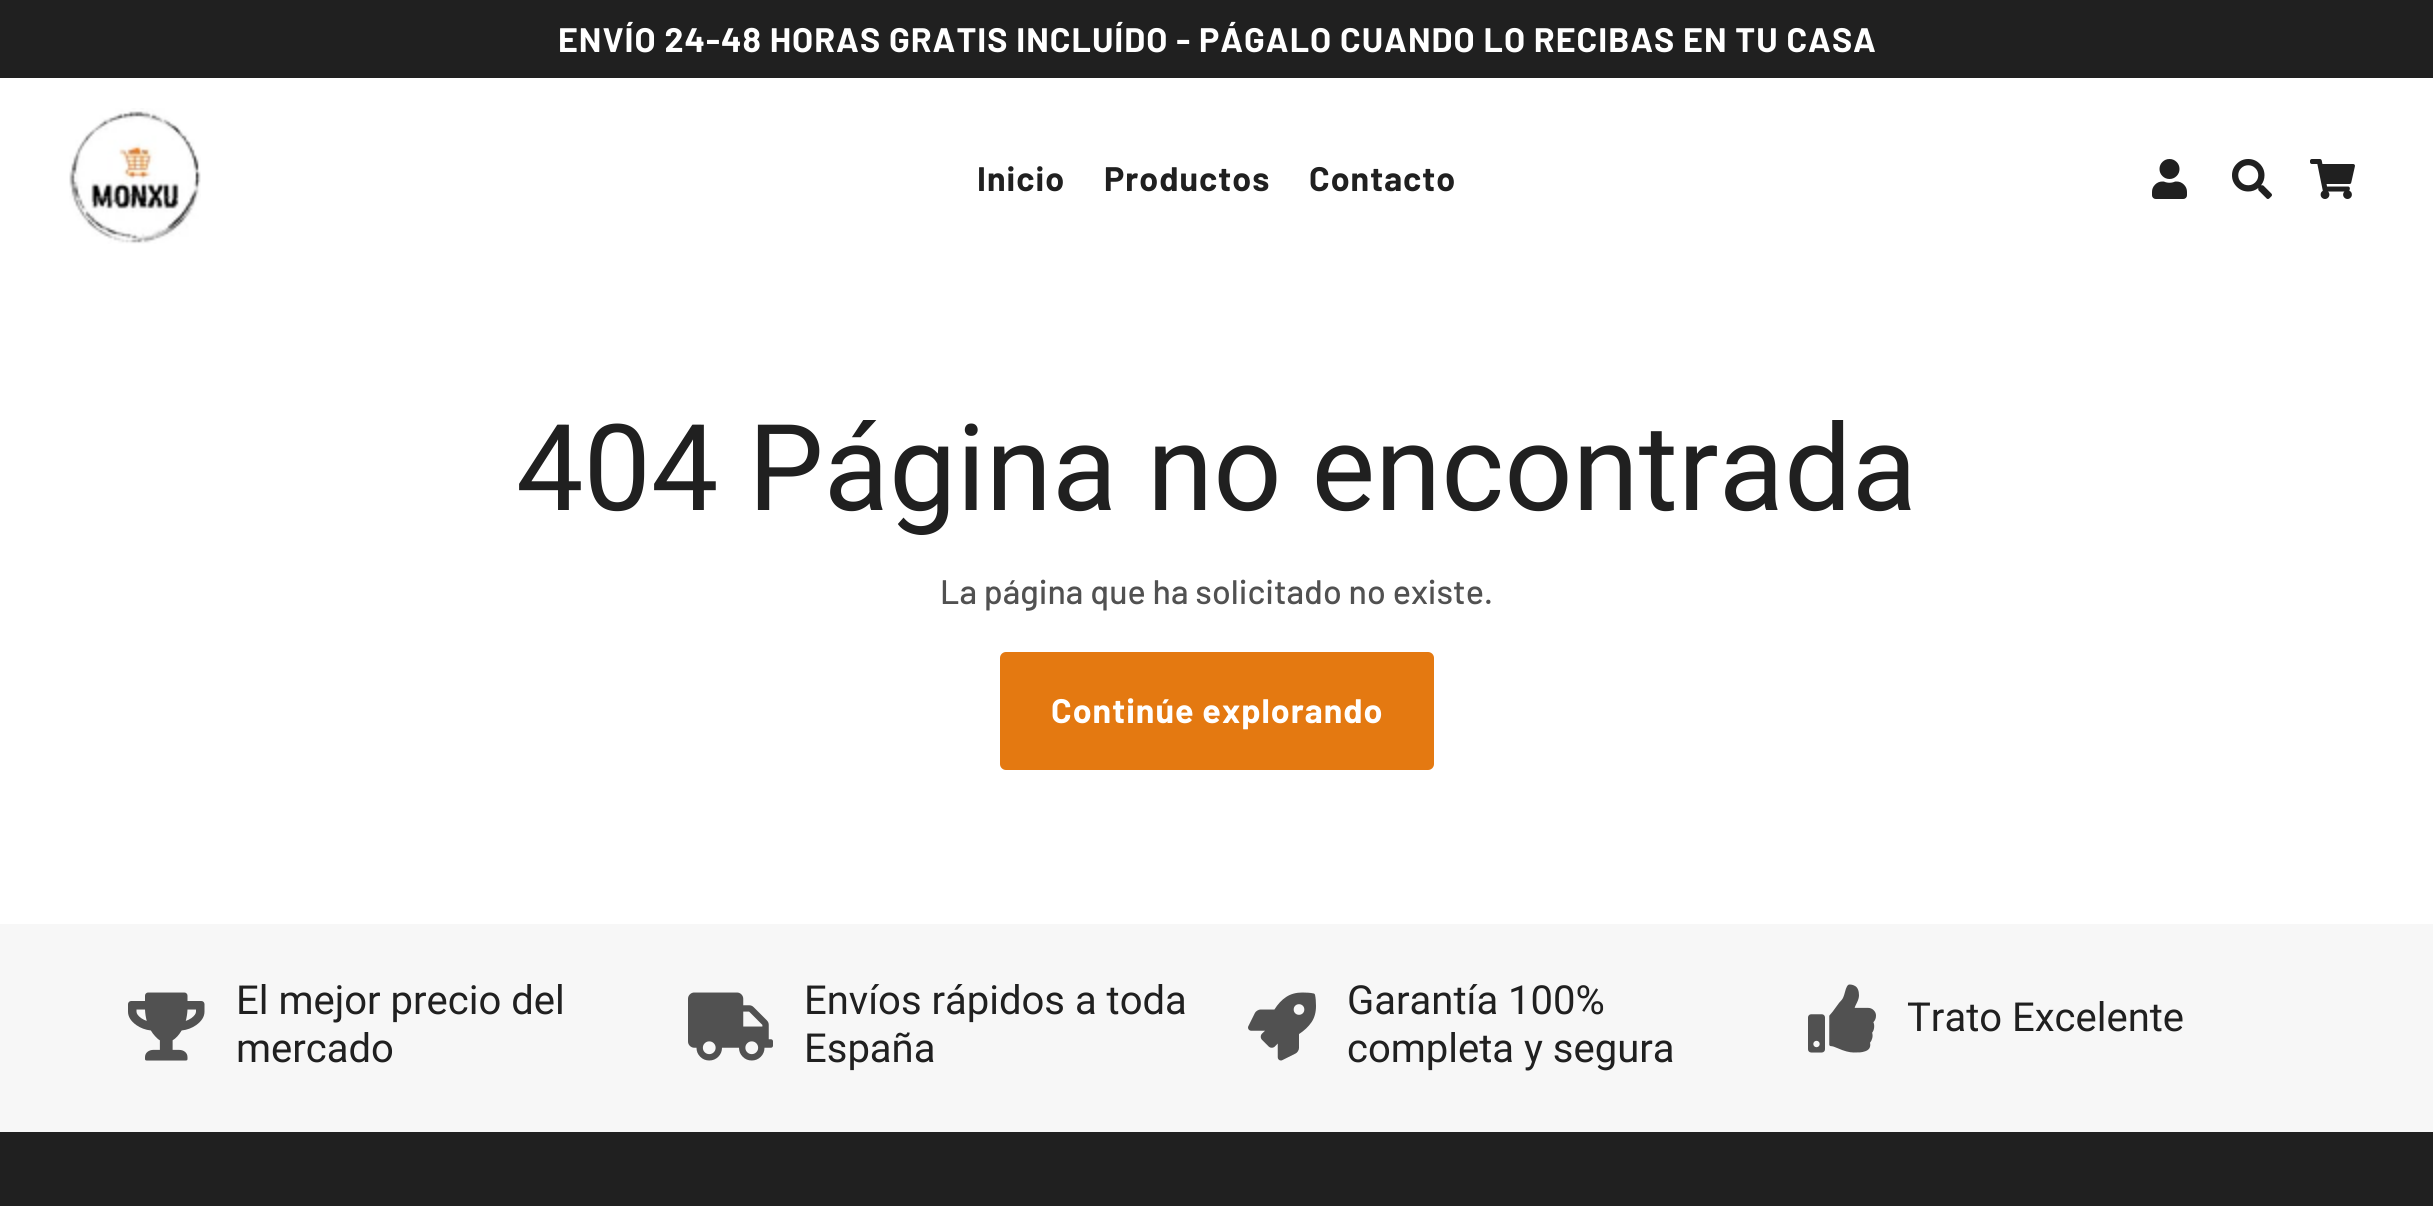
#include <cairo/cairo.h>
#include <math.h>
#include <stddef.h>

typedef struct { double x, y; const char *s; } line_t;
static cairo_t *cr;

static void rgb(unsigned color)
{
	cairo_set_source_rgb(cr, (color >> 16) / 255.0, (color >> 8 & 255) / 255.0, (color & 255) / 255.0);
}

static void tracked(double x, double y, const char *s, double letter, double word)
{
	cairo_move_to(cr, x, y);
	while (*s) {
		char ch[5] = {0};
		int n = 0;
		do ch[n++] = *s++; while ((*s & 0xC0) == 0x80);
		cairo_show_text(cr, ch);
		cairo_rel_move_to(cr, letter + word * (*ch == ' '), 0);
	}
}

static void rrect(double x, double y, double w, double h, double r)
{
	cairo_new_sub_path(cr);
	cairo_arc(cr, x + w - r, y + h - r, r, 0, M_PI / 2);
	cairo_arc(cr, x + r, y + h - r, r, M_PI / 2, M_PI);
	cairo_arc(cr, x + r, y + r, r, M_PI, 1.5 * M_PI);
	cairo_arc(cr, x + w - r, y + r, r, 1.5 * M_PI, 2 * M_PI);
	cairo_close_path(cr);
}

static void image(const char *path, double x, double y, double w, double h)
{
	cairo_surface_t *image = cairo_image_surface_create_from_png(path);
	cairo_save(cr);
	cairo_set_source_surface(cr, image, x, y);
	cairo_rectangle(cr, x, y, w, h);
	cairo_fill(cr);
	cairo_restore(cr);
	cairo_surface_destroy(image);
}

int main(void) {
	cairo_surface_t *surface = cairo_image_surface_create(CAIRO_FORMAT_RGB24, 2433, 1206);
	cr = cairo_create(surface);
	cairo_font_options_t *options = cairo_font_options_create();
	cairo_font_options_set_hint_metrics(options, CAIRO_HINT_METRICS_OFF);
	cairo_font_options_set_hint_style(options, CAIRO_HINT_STYLE_NONE);
	cairo_set_font_options(cr, options);
	cairo_set_miter_limit(cr, 4);
	rgb(0xffffff);
	cairo_paint(cr);
	rgb(0x202020);
	cairo_rectangle(cr, 0, 0, 2433, 78);
	cairo_fill(cr);
	image("img/1.png", 69, 108, 132, 136);
	image("img/2.png", 2152, 159, 35, 40);
	image("img/3.png", 2232, 159, 40, 40);
	image("img/4.png", 2310, 159, 45, 40);
	rgb(0xe47911);
	rrect(1001, 653, 432, 116, 5);
	cairo_fill_preserve(cr);
	cairo_stroke(cr);
	rgb(0xf7f7f7);
	cairo_rectangle(cr, 0, 924, 2433, 208);
	cairo_fill(cr);
	image("img/5.png", 128, 992, 77, 69);
	image("img/6.png", 688, 992, 85, 69);
	image("img/7.png", 1248, 992, 68, 69);
	image("img/8.png", 1808, 984, 68, 69);
	rgb(0x202020);
	cairo_rectangle(cr, 0, 1132, 2433, 74);
	cairo_fill(cr);
	cairo_select_font_face(cr, "Barlow", CAIRO_FONT_SLANT_NORMAL, CAIRO_FONT_WEIGHT_BOLD);
	cairo_set_font_size(cr, 34);
	rgb(0xffffff);
	tracked(558, 52, "ENVÍO 24-48 HORAS GRATIS INCLUÍDO - PÁGALO CUANDO LO RECIBAS EN TU CASA", 1, 0);
	rgb(0x202020);
	{
		static const line_t items[] = {
			{977, 191, "Inicio"},
			{1104, 191, "Productos"},
			{1309, 191, "Contacto"},
		};
		for (size_t i = 0; i < sizeof items / sizeof *items; i++) {
			tracked(items[i].x, items[i].y, items[i].s, 1, 0);
		}
	}
	cairo_select_font_face(cr, "Roboto", CAIRO_FONT_SLANT_NORMAL, CAIRO_FONT_WEIGHT_NORMAL);
	cairo_set_font_size(cr, 120);
	cairo_move_to(cr, 516, 510);
	cairo_show_text(cr, "404 Página no encontrada");
	cairo_select_font_face(cr, "Barlow Medium", CAIRO_FONT_SLANT_NORMAL, CAIRO_FONT_WEIGHT_NORMAL);
	cairo_set_font_size(cr, 34);
	rgb(0x515151);
	cairo_move_to(cr, 940, 604);
	cairo_show_text(cr, "La página que ha solicitado no existe.");
	cairo_select_font_face(cr, "Barlow", CAIRO_FONT_SLANT_NORMAL, CAIRO_FONT_WEIGHT_BOLD);
	rgb(0xffffff);
	tracked(1051, 723, "Continúe explorando", 1, 0);
	cairo_select_font_face(cr, "Roboto", CAIRO_FONT_SLANT_NORMAL, CAIRO_FONT_WEIGHT_NORMAL);
	cairo_set_font_size(cr, 40);
	rgb(0x202020);
	{
		static const line_t items[] = {
			{236, 1014, "El mejor precio del"},
			{236, 1062, "mercado"},
			{804, 1014, "Envíos rápidos a toda"},
			{804, 1062, "España"},
			{1347, 1014, "Garantía 100%"},
			{1347, 1062, "completa y segura"},
			{1907, 1031, "Trato Excelente"},
		};
		for (size_t i = 0; i < sizeof items / sizeof *items; i++) {
			cairo_move_to(cr, items[i].x, items[i].y);
			cairo_show_text(cr, items[i].s);
		}
	}
	cairo_surface_write_to_png(surface, "page.png");
	cairo_font_options_destroy(options);
	cairo_destroy(cr);
	cairo_surface_destroy(surface);
	return 0;
}
